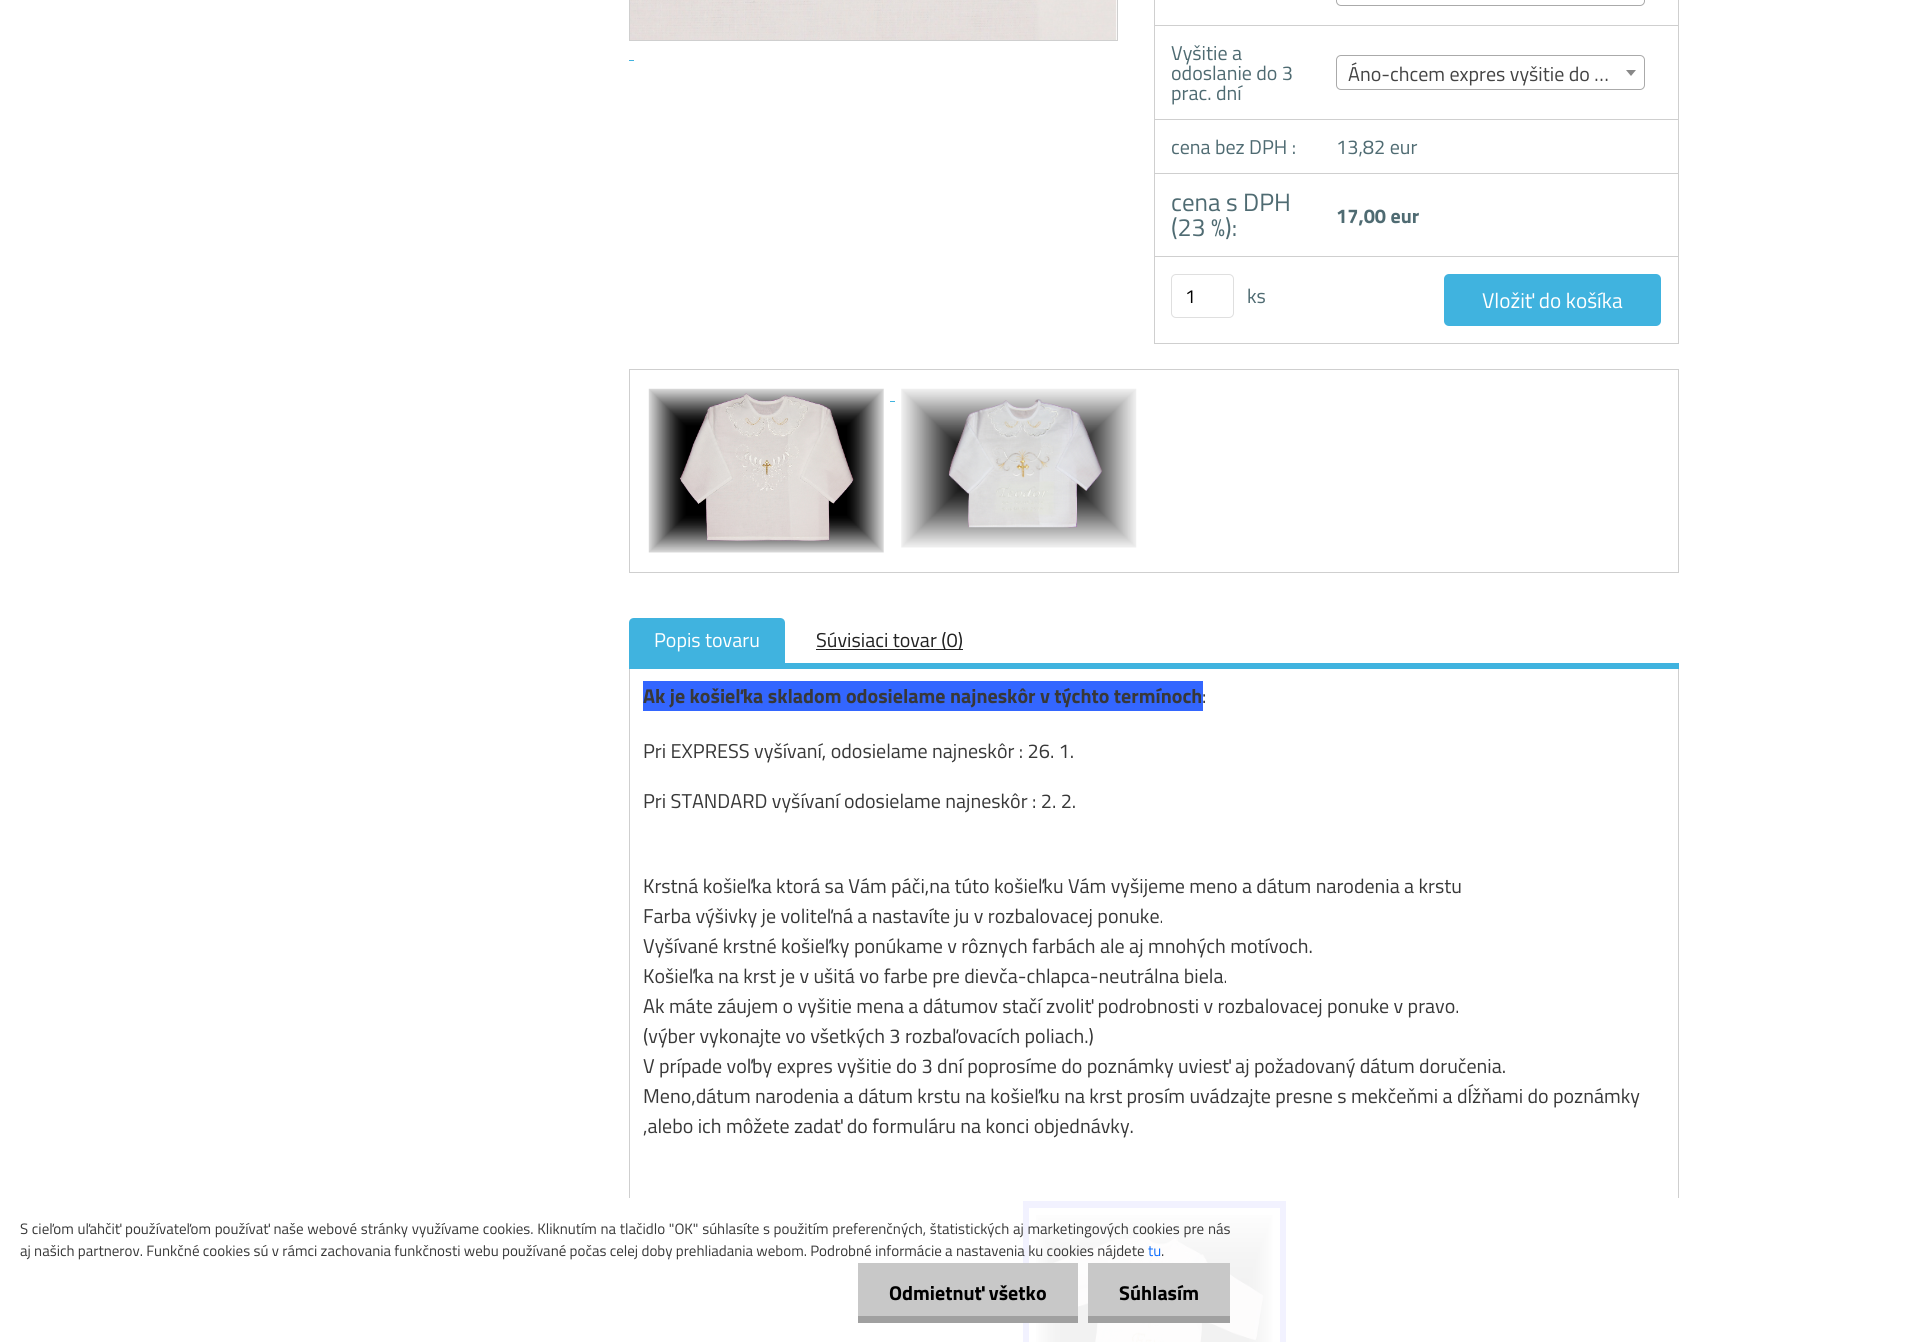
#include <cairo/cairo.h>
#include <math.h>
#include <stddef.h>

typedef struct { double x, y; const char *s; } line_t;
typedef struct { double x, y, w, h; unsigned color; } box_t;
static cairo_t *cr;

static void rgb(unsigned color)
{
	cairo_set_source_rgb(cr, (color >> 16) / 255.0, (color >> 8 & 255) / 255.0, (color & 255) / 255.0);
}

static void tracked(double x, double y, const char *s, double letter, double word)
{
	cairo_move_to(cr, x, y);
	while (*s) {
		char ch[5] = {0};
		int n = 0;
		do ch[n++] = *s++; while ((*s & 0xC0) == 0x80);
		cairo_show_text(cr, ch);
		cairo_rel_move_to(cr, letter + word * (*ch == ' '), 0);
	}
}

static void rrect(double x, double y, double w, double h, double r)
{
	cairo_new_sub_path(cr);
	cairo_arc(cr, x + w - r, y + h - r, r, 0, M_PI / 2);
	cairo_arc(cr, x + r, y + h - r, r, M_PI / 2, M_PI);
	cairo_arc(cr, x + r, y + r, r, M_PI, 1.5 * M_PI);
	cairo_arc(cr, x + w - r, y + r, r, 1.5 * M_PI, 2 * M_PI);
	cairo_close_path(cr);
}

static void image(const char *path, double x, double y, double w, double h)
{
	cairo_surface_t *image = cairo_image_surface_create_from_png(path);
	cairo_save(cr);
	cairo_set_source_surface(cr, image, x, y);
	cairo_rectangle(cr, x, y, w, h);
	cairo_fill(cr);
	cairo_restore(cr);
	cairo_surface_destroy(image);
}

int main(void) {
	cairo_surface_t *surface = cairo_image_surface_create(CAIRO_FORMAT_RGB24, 1932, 1342);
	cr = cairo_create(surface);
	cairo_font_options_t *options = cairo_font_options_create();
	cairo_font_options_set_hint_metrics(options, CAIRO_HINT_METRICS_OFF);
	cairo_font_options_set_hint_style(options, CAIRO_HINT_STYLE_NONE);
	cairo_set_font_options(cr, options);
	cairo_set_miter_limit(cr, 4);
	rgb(0xffffff);
	cairo_paint(cr);
	cairo_rectangle(cr, 629.5, -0.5, 488, 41);
	rgb(0xcfcfcf);
	cairo_set_line_width(cr, 1);
	cairo_stroke(cr);
	image("img/1.png", 630, 0, 487, 40);
	{
		static const box_t items[] = {
			{629, 60, 5, 1, 0x40b3df},
			{1678, 0, 1, 344, 0xcfcfcf},
			{1154, 343, 525, 1, 0xcfcfcf},
			{1154, 0, 1, 344, 0xcfcfcf},
		};
		for (size_t i = 0; i < sizeof items / sizeof *items; i++) {
			rgb(items[i].color);
			cairo_rectangle(cr, items[i].x, items[i].y, items[i].w, items[i].h);
			cairo_fill(cr);
		}
	}
	rrect(1336.5, -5.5, 308, 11, 4.5);
	rgb(0xaaaaaa);
	cairo_stroke(cr);
	rgb(0xcfcfcf);
	cairo_rectangle(cr, 1154, 25, 525, 1);
	cairo_fill(cr);
	rrect(1336.5, 55.5, 308, 34, 4.5);
	rgb(0xaaaaaa);
	cairo_stroke(cr);
	rgb(0x888888);
	cairo_new_path(cr);
	cairo_move_to(cr, 1626, 70);
	cairo_line_to(cr, 1636, 70);
	cairo_line_to(cr, 1631, 76);
	cairo_close_path(cr);
	cairo_fill(cr);
	{
		static const box_t items[] = {
			{1154, 119, 525, 1, 0xcfcfcf},
			{1154, 173, 525, 1, 0xcfcfcf},
			{1154, 256, 525, 1, 0xcfcfcf},
		};
		for (size_t i = 0; i < sizeof items / sizeof *items; i++) {
			rgb(items[i].color);
			cairo_rectangle(cr, items[i].x, items[i].y, items[i].w, items[i].h);
			cairo_fill(cr);
		}
	}
	rrect(1171.5, 274.5, 62, 43, 4.5);
	rgb(0xdfdfdf);
	cairo_stroke(cr);
	rgb(0x40b3df);
	rrect(1444, 274, 217, 52, 5);
	cairo_fill(cr);
	cairo_rectangle(cr, 629.5, 369.5, 1049, 203);
	rgb(0xcfcfcf);
	cairo_stroke(cr);
	image("img/2.png", 648, 388, 236, 165);
	rgb(0x40b3df);
	cairo_rectangle(cr, 890, 401, 5, 1);
	cairo_fill(cr);
	image("img/3.png", 901, 388, 236, 160);
	cairo_rectangle(cr, 629, 663, 1050, 6);
	cairo_fill(cr);
	cairo_new_path(cr);
	cairo_move_to(cr, 634, 618);
	cairo_line_to(cr, 780, 618);
	cairo_curve_to(cr, 783, 618, 785, 620, 785, 623);
	cairo_line_to(cr, 785, 663);
	cairo_line_to(cr, 629, 663);
	cairo_line_to(cr, 629, 623);
	cairo_curve_to(cr, 629, 620, 631, 618, 634, 618);
	cairo_close_path(cr);
	cairo_fill(cr);
	{
		static const box_t items[] = {
			{816, 649, 147, 1, 0x222222},
			{1678, 669, 1, 529, 0xcfcfcf},
			{629, 669, 1, 529, 0xcfcfcf},
			{643, 681, 560, 30, 0x3366ff},
			{1023, 1201, 263, 7, 0xf2f2ff},
			{1280, 1201, 6, 141, 0xf2f2ff},
			{1023, 1201, 6, 141, 0xf2f2ff},
		};
		for (size_t i = 0; i < sizeof items / sizeof *items; i++) {
			rgb(items[i].color);
			cairo_rectangle(cr, items[i].x, items[i].y, items[i].w, items[i].h);
			cairo_fill(cr);
		}
	}
	image("img/4.png", 1036, 1215, 237, 127);
	{
		static const box_t items[] = {
			{858, 1263, 220, 53, 0xc8c8c8},
			{858, 1316, 220, 7, 0xa0a0a0},
			{1088, 1263, 142, 53, 0xc8c8c8},
			{1088, 1316, 142, 7, 0xa0a0a0},
		};
		for (size_t i = 0; i < sizeof items / sizeof *items; i++) {
			rgb(items[i].color);
			cairo_rectangle(cr, items[i].x, items[i].y, items[i].w, items[i].h);
			cairo_fill(cr);
		}
	}
	cairo_select_font_face(cr, "Titillium Web", CAIRO_FONT_SLANT_NORMAL, CAIRO_FONT_WEIGHT_NORMAL);
	cairo_set_font_size(cr, 20);
	rgb(0x4f6b72);
	{
		static const line_t items[] = {
			{1171, 60, "Vyšitie a"},
			{1171, 80, "odoslanie do 3"},
			{1171, 100, "prac. dní"},
		};
		for (size_t i = 0; i < sizeof items / sizeof *items; i++) {
			cairo_move_to(cr, items[i].x, items[i].y);
			cairo_show_text(cr, items[i].s);
		}
	}
	rgb(0x444444);
	cairo_move_to(cr, 1348, 81);
	cairo_show_text(cr, "Áno-chcem expres vyšitie do …");
	rgb(0x4f6b72);
	cairo_move_to(cr, 1171, 154);
	cairo_show_text(cr, "cena bez DPH :");
	cairo_move_to(cr, 1336, 154);
	cairo_show_text(cr, "13,82 eur");
	cairo_set_font_size(cr, 25);
	cairo_move_to(cr, 1171, 211);
	cairo_show_text(cr, "cena s DPH");
	cairo_move_to(cr, 1171, 236);
	cairo_show_text(cr, "(23 %):");
	cairo_select_font_face(cr, "Titillium Web", CAIRO_FONT_SLANT_NORMAL, CAIRO_FONT_WEIGHT_BOLD);
	cairo_set_font_size(cr, 20);
	cairo_move_to(cr, 1336, 223);
	cairo_show_text(cr, "17,00 eur");
	cairo_select_font_face(cr, "Titillium Web", CAIRO_FONT_SLANT_NORMAL, CAIRO_FONT_WEIGHT_NORMAL);
	cairo_set_font_size(cr, 19);
	rgb(0x000000);
	cairo_move_to(cr, 1185, 303);
	cairo_show_text(cr, "1");
	cairo_set_font_size(cr, 20);
	rgb(0x4f6b72);
	cairo_move_to(cr, 1247, 303);
	cairo_show_text(cr, "ks");
	cairo_set_font_size(cr, 21.25);
	rgb(0xffffff);
	cairo_move_to(cr, 1482, 308);
	cairo_show_text(cr, "Vložiť do košíka");
	cairo_set_font_size(cr, 20);
	cairo_move_to(cr, 654, 647);
	cairo_show_text(cr, "Popis tovaru");
	rgb(0x222222);
	cairo_move_to(cr, 816, 647);
	cairo_show_text(cr, "Súvisiaci tovar (0)");
	cairo_select_font_face(cr, "Titillium Web", CAIRO_FONT_SLANT_NORMAL, CAIRO_FONT_WEIGHT_BOLD);
	rgb(0x383838);
	cairo_move_to(cr, 643, 703);
	cairo_show_text(cr, "Ak je košieľka skladom odosielame najneskôr v týchto termínoch");
	cairo_select_font_face(cr, "Titillium Web", CAIRO_FONT_SLANT_NORMAL, CAIRO_FONT_WEIGHT_NORMAL);
	{
		static const line_t items[] = {
			{1202, 703, ":"},
			{643, 758, "Pri EXPRESS vyšívaní, odosielame najneskôr : 26. 1."},
			{643, 808, "Pri STANDARD vyšívaní odosielame najneskôr : 2. 2."},
			{643, 893, "Krstná košieľka ktorá sa Vám páči,na túto košieľku Vám vyšijeme meno a dátum narodenia a krstu"},
			{643, 923, "Farba výšivky je voliteľná a nastavíte ju v rozbalovacej ponuke."},
			{643, 953, "Vyšívané krstné košieľky ponúkame v rôznych farbách ale aj mnohých motívoch."},
			{643, 983, "Košieľka na krst je v ušitá vo farbe pre dievča-chlapca-neutrálna biela."},
			{643, 1013, "Ak máte záujem o vyšitie mena a dátumov stačí zvoliť podrobnosti v rozbalovacej ponuke v pravo."},
			{643, 1043, "(výber vykonajte vo všetkých 3 rozbaľovacích poliach.)"},
			{643, 1073, "V prípade voľby expres vyšitie do 3 dní poprosíme do poznámky uviesť aj požadovaný dátum doručenia."},
			{643, 1103, "Meno,dátum narodenia a dátum krstu na košieľku na krst prosím uvádzajte presne s mekčeňmi a dĺžňami do poznámky"},
			{643, 1133, ",alebo ich môžete zadať do formuláru na konci objednávky."},
		};
		for (size_t i = 0; i < sizeof items / sizeof *items; i++) {
			cairo_move_to(cr, items[i].x, items[i].y);
			cairo_show_text(cr, items[i].s);
		}
	}
	cairo_set_font_size(cr, 15);
	tracked(20, 1234, "S cieľom uľahčiť používateľom používať naše webové stránky využívame cookies. Kliknutím na tlačidlo \"OK\" súhlasíte s použitím preferenčných, štatistických aj marketingových cookies pre nás", 0, 0.4);
	cairo_move_to(cr, 20, 1256);
	cairo_show_text(cr, "aj našich partnerov. Funkčné cookies sú v rámci zachovania funkčnosti webu používané počas celej doby prehliadania webom. Podrobné informácie a nastavenia ku cookies nájdete");
	rgb(0x0d6efd);
	cairo_move_to(cr, 1148, 1256);
	cairo_show_text(cr, "tu");
	rgb(0x383838);
	cairo_move_to(cr, 1161, 1256);
	cairo_show_text(cr, ".");
	cairo_select_font_face(cr, "Titillium Web", CAIRO_FONT_SLANT_NORMAL, CAIRO_FONT_WEIGHT_BOLD);
	cairo_set_font_size(cr, 20);
	rgb(0x000000);
	cairo_move_to(cr, 889, 1300);
	cairo_show_text(cr, "Odmietnuť všetko");
	cairo_move_to(cr, 1119, 1300);
	cairo_show_text(cr, "Súhlasím");
	cairo_surface_write_to_png(surface, "page.png");
	cairo_font_options_destroy(options);
	cairo_destroy(cr);
	cairo_surface_destroy(surface);
	return 0;
}
